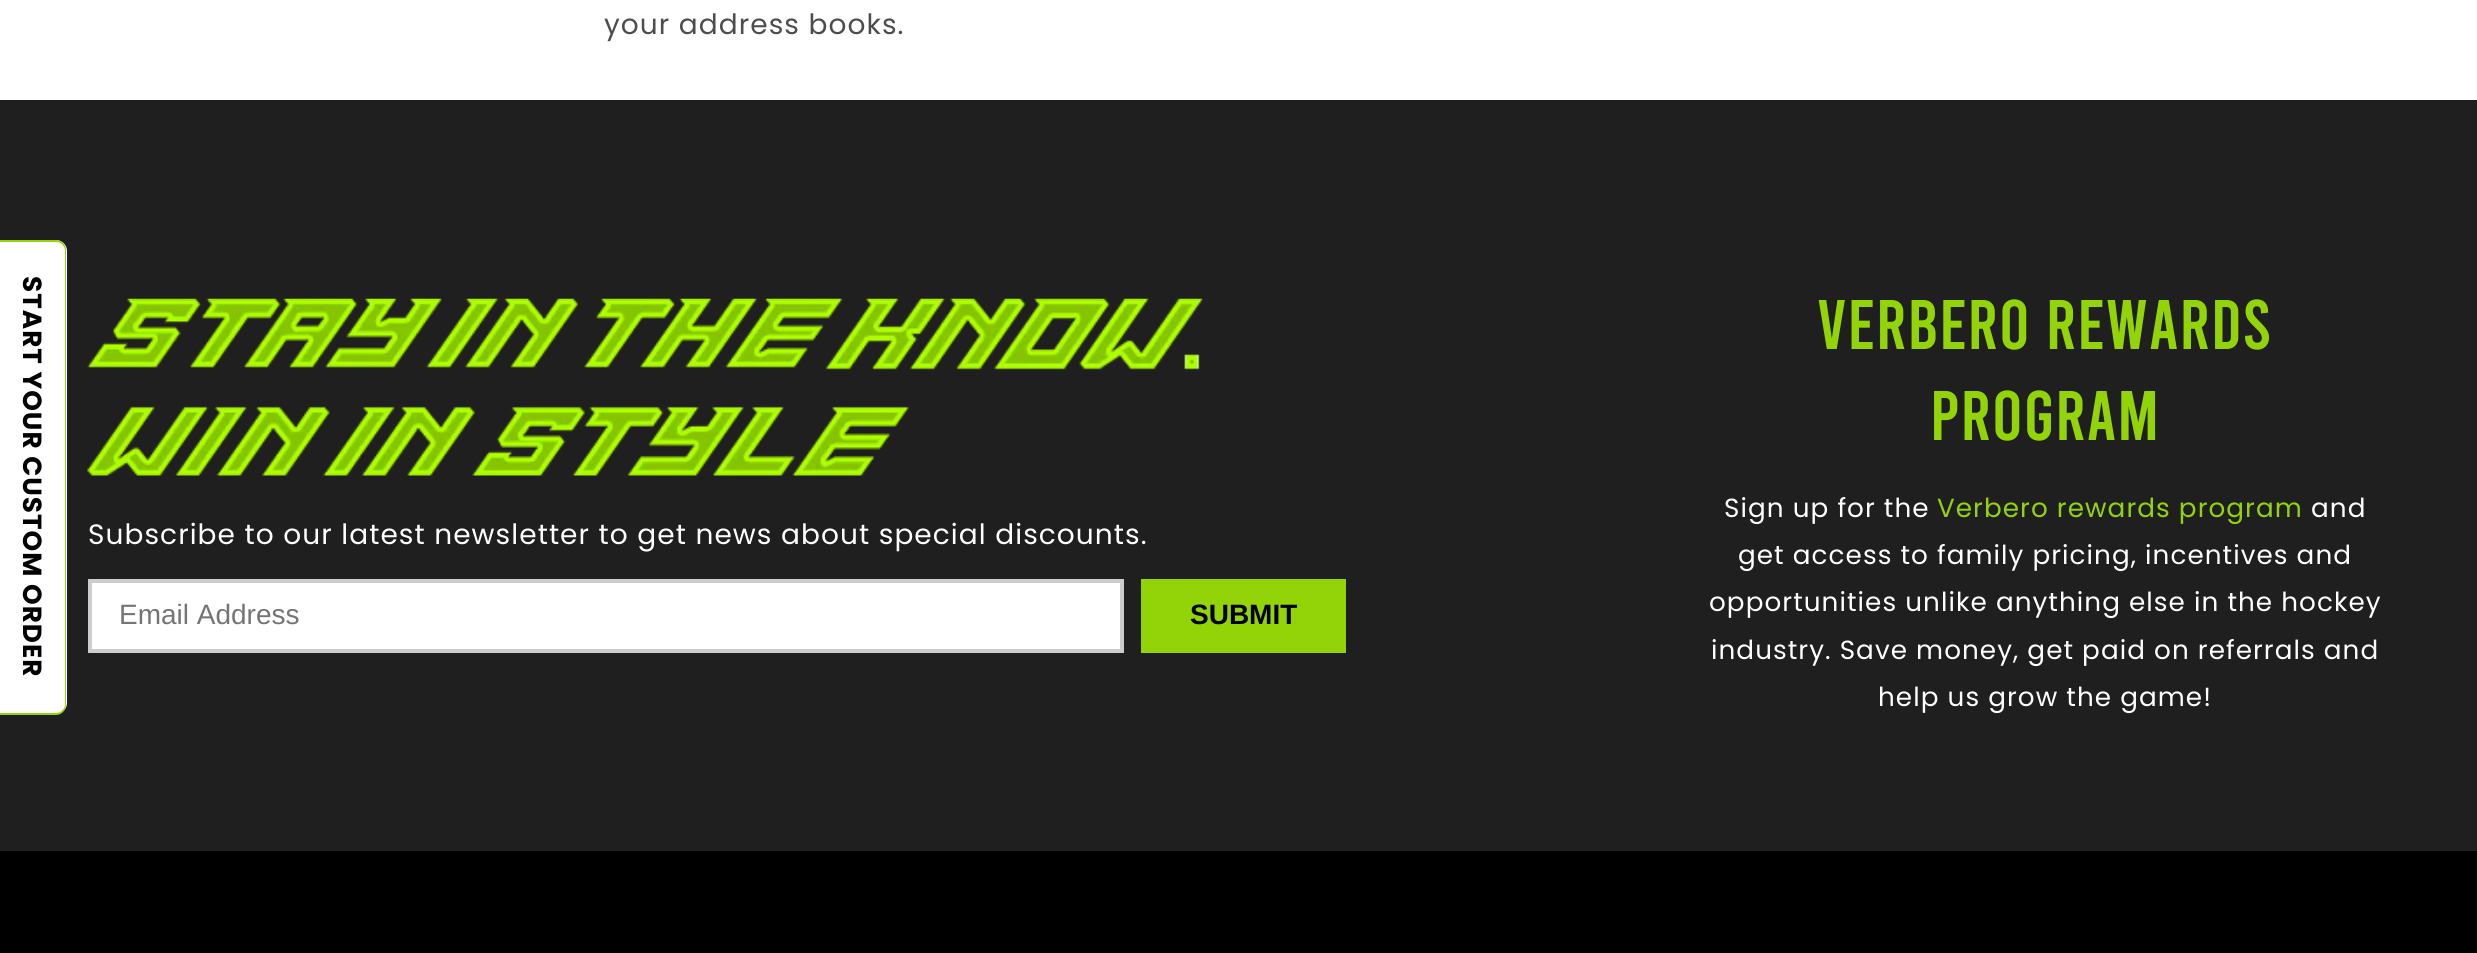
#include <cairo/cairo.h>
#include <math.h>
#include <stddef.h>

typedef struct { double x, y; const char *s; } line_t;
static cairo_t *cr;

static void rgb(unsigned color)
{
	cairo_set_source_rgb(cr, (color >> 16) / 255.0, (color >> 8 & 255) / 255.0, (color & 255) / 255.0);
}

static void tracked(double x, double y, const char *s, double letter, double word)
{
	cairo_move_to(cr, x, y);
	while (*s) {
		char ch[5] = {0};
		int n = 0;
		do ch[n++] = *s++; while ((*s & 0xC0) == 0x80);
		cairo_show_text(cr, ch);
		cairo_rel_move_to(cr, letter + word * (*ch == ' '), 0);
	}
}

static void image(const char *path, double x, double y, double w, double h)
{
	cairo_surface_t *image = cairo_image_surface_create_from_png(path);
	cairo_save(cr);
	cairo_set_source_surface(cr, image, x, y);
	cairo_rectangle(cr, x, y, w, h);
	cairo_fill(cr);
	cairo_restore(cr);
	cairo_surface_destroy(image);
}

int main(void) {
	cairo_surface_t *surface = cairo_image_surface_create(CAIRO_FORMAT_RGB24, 2477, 953);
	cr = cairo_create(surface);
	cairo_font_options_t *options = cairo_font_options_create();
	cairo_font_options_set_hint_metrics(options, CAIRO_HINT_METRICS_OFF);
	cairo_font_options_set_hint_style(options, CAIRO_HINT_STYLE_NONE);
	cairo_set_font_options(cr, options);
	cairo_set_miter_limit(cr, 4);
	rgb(0xffffff);
	cairo_paint(cr);
	rgb(0x1f1f1f);
	cairo_rectangle(cr, 0, 100, 2477, 751);
	cairo_fill(cr);
	rgb(0xffffff);
	cairo_new_path(cr);
	cairo_move_to(cr, 0, 240);
	cairo_line_to(cr, 56, 240);
	cairo_curve_to(cr, 62, 240, 67, 245, 67, 251);
	cairo_line_to(cr, 67, 703);
	cairo_curve_to(cr, 67, 709, 62, 714, 56, 714);
	cairo_line_to(cr, 0, 714);
	cairo_close_path(cr);
	cairo_fill(cr);
	rgb(0x93d408);
	cairo_set_fill_rule(cr, CAIRO_FILL_RULE_EVEN_ODD);
	cairo_new_path(cr);
	cairo_move_to(cr, 0, 240);
	cairo_line_to(cr, 56, 240);
	cairo_curve_to(cr, 62, 240, 66, 245, 66, 251);
	cairo_line_to(cr, 66, 704);
	cairo_curve_to(cr, 66, 710, 62, 715, 56, 715);
	cairo_line_to(cr, 0, 715);
	cairo_close_path(cr);
	cairo_move_to(cr, 0, 242);
	cairo_line_to(cr, 56, 242);
	cairo_curve_to(cr, 61, 242, 65, 246, 65, 251);
	cairo_line_to(cr, 65, 704);
	cairo_curve_to(cr, 65, 709, 61, 713, 56, 713);
	cairo_line_to(cr, 0, 713);
	cairo_close_path(cr);
	cairo_fill(cr);
	image("img/1.png", 87, 298, 1116, 178);
	rgb(0xffffff);
	cairo_rectangle(cr, 90, 581, 1032, 70);
	cairo_fill_preserve(cr);
	rgb(0xcccccc);
	cairo_set_line_width(cr, 4);
	cairo_stroke(cr);
	rgb(0x93d408);
	cairo_rectangle(cr, 1141, 579, 205, 74);
	cairo_fill(cr);
	rgb(0x000000);
	cairo_rectangle(cr, 0, 851, 2477, 102);
	cairo_fill(cr);
	cairo_select_font_face(cr, "Poppins", CAIRO_FONT_SLANT_NORMAL, CAIRO_FONT_WEIGHT_NORMAL);
	cairo_set_font_size(cr, 28);
	rgb(0x4d4d4d);
	tracked(604, 34, "your address books.", 1.05, 0);
	cairo_select_font_face(cr, "Poppins", CAIRO_FONT_SLANT_NORMAL, CAIRO_FONT_WEIGHT_BOLD);
	cairo_set_font_size(cr, 26.25);
	rgb(0x000000);
	cairo_save(cr);
	cairo_translate(cr, 23, 276);
	cairo_rotate(cr, 90 * M_PI / 180);
	tracked(0, 0, "START YOUR CUSTOM ORDER", 1.05, 0);
	cairo_restore(cr);
	cairo_select_font_face(cr, "Poppins", CAIRO_FONT_SLANT_NORMAL, CAIRO_FONT_WEIGHT_NORMAL);
	cairo_set_font_size(cr, 28);
	rgb(0xffffff);
	tracked(88, 544, "Subscribe to our latest newsletter to get news about special discounts.", 1.05, 0);
	cairo_select_font_face(cr, "Liberation Sans", CAIRO_FONT_SLANT_NORMAL, CAIRO_FONT_WEIGHT_NORMAL);
	rgb(0x757575);
	cairo_move_to(cr, 119, 624);
	cairo_show_text(cr, "Email Address");
	cairo_select_font_face(cr, "Liberation Sans", CAIRO_FONT_SLANT_NORMAL, CAIRO_FONT_WEIGHT_BOLD);
	rgb(0x000000);
	cairo_move_to(cr, 1190, 624);
	cairo_show_text(cr, "SUBMIT");
	cairo_select_font_face(cr, "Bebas", CAIRO_FONT_SLANT_NORMAL, CAIRO_FONT_WEIGHT_NORMAL);
	cairo_set_font_size(cr, 70);
	rgb(0x93d408);
	tracked(1817, 349, "VERBERO REWARDS", 1.05, 0);
	tracked(1930, 440, "PROGRAM", 1.05, 0);
	cairo_select_font_face(cr, "Poppins", CAIRO_FONT_SLANT_NORMAL, CAIRO_FONT_WEIGHT_NORMAL);
	cairo_set_font_size(cr, 26.25);
	rgb(0xffffff);
	tracked(1724, 517, "Sign up for the", 1.05, 0);
	rgb(0x93d408);
	tracked(1937, 517, "Verbero rewards program", 1.05, 0);
	rgb(0xffffff);
	{
		static const line_t items[] = {
			{2311, 517, "and"},
			{1738, 564, "get access to family pricing, incentives and"},
			{1709, 611, "opportunities unlike anything else in the hockey"},
			{1711, 659, "industry. Save money, get paid on referrals and"},
			{1878, 706, "help us grow the game!"},
		};
		for (size_t i = 0; i < sizeof items / sizeof *items; i++) {
			tracked(items[i].x, items[i].y, items[i].s, 1.05, 0);
		}
	}
	cairo_surface_write_to_png(surface, "page.png");
	cairo_font_options_destroy(options);
	cairo_destroy(cr);
	cairo_surface_destroy(surface);
	return 0;
}
